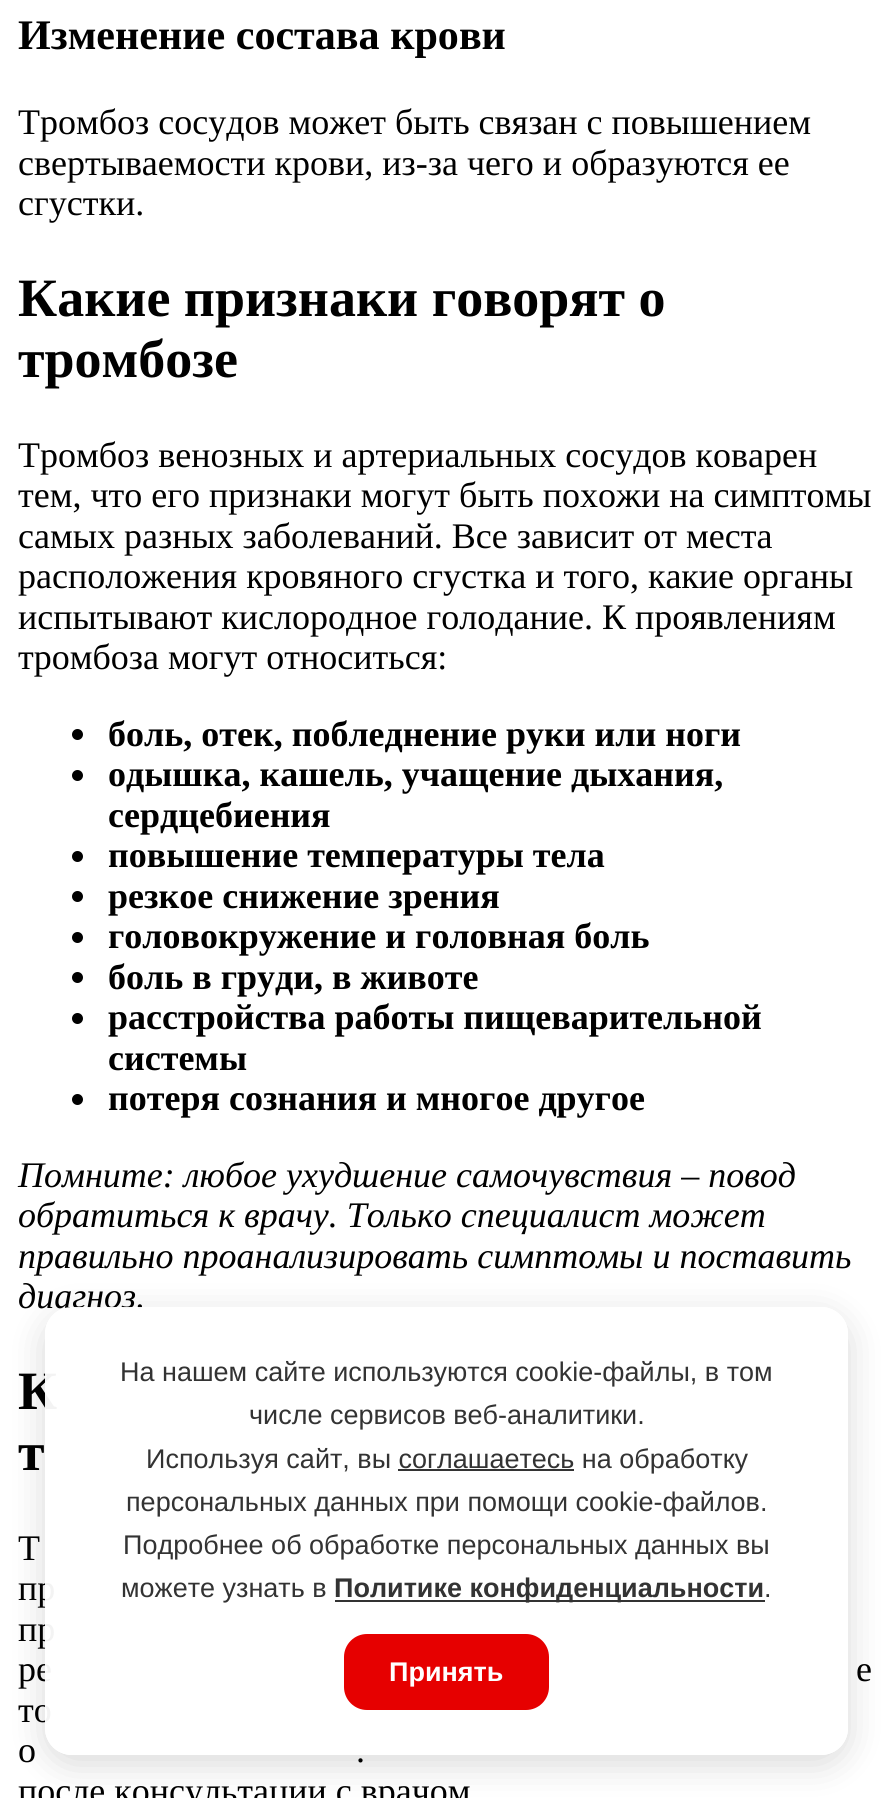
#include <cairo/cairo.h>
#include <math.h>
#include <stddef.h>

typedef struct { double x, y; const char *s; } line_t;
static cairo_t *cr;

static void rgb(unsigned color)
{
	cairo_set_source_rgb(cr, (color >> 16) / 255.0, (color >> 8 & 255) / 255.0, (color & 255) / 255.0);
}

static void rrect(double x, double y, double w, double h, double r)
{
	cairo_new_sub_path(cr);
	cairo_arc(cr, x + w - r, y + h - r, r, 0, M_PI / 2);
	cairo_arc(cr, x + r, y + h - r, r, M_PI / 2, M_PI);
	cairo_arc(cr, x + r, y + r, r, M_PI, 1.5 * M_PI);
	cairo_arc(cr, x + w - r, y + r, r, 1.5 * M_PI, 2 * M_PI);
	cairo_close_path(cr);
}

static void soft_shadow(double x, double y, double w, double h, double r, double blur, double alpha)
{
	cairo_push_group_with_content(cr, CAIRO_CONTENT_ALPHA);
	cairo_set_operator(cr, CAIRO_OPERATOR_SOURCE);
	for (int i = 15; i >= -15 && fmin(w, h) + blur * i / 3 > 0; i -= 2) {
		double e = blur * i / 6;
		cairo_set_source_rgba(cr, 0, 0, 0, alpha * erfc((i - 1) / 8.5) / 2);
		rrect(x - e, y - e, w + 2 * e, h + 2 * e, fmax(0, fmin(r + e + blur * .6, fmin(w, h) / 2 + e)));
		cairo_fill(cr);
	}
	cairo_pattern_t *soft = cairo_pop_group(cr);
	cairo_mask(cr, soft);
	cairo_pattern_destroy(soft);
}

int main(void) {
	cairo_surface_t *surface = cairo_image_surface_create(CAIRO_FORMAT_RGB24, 893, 1798);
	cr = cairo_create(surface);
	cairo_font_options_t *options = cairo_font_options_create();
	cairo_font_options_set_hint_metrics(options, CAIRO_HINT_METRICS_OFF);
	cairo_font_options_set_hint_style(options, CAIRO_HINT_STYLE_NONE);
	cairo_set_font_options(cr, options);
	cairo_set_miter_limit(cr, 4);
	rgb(0xffffff);
	cairo_paint(cr);
	rgb(0x000000);
	cairo_arc(cr, 77.5, 734.5, 5.5, 0, 2 * M_PI);
	cairo_fill(cr);
	cairo_arc(cr, 77.5, 775.5, 5.5, 0, 2 * M_PI);
	cairo_fill(cr);
	cairo_arc(cr, 77.5, 856.5, 5.5, 0, 2 * M_PI);
	cairo_fill(cr);
	cairo_arc(cr, 77.5, 896.5, 5.5, 0, 2 * M_PI);
	cairo_fill(cr);
	cairo_arc(cr, 77.5, 937.5, 5.5, 0, 2 * M_PI);
	cairo_fill(cr);
	cairo_arc(cr, 77.5, 977.5, 5.5, 0, 2 * M_PI);
	cairo_fill(cr);
	cairo_arc(cr, 77.5, 1018.5, 5.5, 0, 2 * M_PI);
	cairo_fill(cr);
	cairo_arc(cr, 77.5, 1099.5, 5.5, 0, 2 * M_PI);
	cairo_fill(cr);
	cairo_save(cr);
	cairo_set_fill_rule(cr, CAIRO_FILL_RULE_EVEN_ODD);
	cairo_new_path(cr);
	cairo_move_to(cr, 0, 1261);
	cairo_line_to(cr, 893, 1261);
	cairo_line_to(cr, 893, 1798);
	cairo_line_to(cr, 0, 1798);
	cairo_close_path(cr);
	cairo_move_to(cr, 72, 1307);
	cairo_line_to(cr, 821, 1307);
	cairo_curve_to(cr, 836, 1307, 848, 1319, 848, 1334);
	cairo_line_to(cr, 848, 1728);
	cairo_curve_to(cr, 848, 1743, 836, 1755, 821, 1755);
	cairo_line_to(cr, 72, 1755);
	cairo_curve_to(cr, 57, 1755, 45, 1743, 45, 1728);
	cairo_line_to(cr, 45, 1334);
	cairo_curve_to(cr, 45, 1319, 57, 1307, 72, 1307);
	cairo_close_path(cr);
	cairo_clip(cr);
	rgb(0x000000);
	soft_shadow(45, 1316, 803, 448, 27, 18, 0.15);
	cairo_restore(cr);
	cairo_select_font_face(cr, "Liberation Serif", CAIRO_FONT_SLANT_NORMAL, CAIRO_FONT_WEIGHT_BOLD);
	cairo_set_font_size(cr, 42.1);
	cairo_move_to(cr, 18, 49);
	cairo_show_text(cr, "Изменение состава крови");
	cairo_select_font_face(cr, "Liberation Serif", CAIRO_FONT_SLANT_NORMAL, CAIRO_FONT_WEIGHT_NORMAL);
	cairo_set_font_size(cr, 36);
	{
		static const line_t items[] = {
			{18, 134, "Тромбоз сосудов может быть связан с повышением"},
			{18, 175, "свертываемости крови, из-за чего и образуются ее"},
			{18, 215, "сгустки."},
		};
		for (size_t i = 0; i < sizeof items / sizeof *items; i++) {
			cairo_move_to(cr, items[i].x, items[i].y);
			cairo_show_text(cr, items[i].s);
		}
	}
	cairo_select_font_face(cr, "Liberation Serif", CAIRO_FONT_SLANT_NORMAL, CAIRO_FONT_WEIGHT_BOLD);
	cairo_set_font_size(cr, 54);
	cairo_move_to(cr, 18, 316);
	cairo_show_text(cr, "Какие признаки говорят о");
	cairo_move_to(cr, 18, 377);
	cairo_show_text(cr, "тромбозе");
	cairo_select_font_face(cr, "Liberation Serif", CAIRO_FONT_SLANT_NORMAL, CAIRO_FONT_WEIGHT_NORMAL);
	cairo_set_font_size(cr, 36);
	{
		static const line_t items[] = {
			{18, 467, "Тромбоз венозных и артериальных сосудов коварен"},
			{18, 507, "тем, что его признаки могут быть похожи на симптомы"},
			{18, 548, "самых разных заболеваний. Все зависит от места"},
			{18, 588, "расположения кровяного сгустка и того, какие органы"},
			{18, 629, "испытывают кислородное голодание. К проявлениям"},
			{18, 669, "тромбоза могут относиться:"},
		};
		for (size_t i = 0; i < sizeof items / sizeof *items; i++) {
			cairo_move_to(cr, items[i].x, items[i].y);
			cairo_show_text(cr, items[i].s);
		}
	}
	cairo_select_font_face(cr, "Liberation Serif", CAIRO_FONT_SLANT_NORMAL, CAIRO_FONT_WEIGHT_BOLD);
	{
		static const line_t items[] = {
			{108, 746, "боль, отек, побледнение руки или ноги"},
			{108, 786, "одышка, кашель, учащение дыхания,"},
			{108, 827, "сердцебиения"},
			{108, 867, "повышение температуры тела"},
			{108, 908, "резкое снижение зрения"},
			{108, 948, "головокружение и головная боль"},
			{108, 989, "боль в груди, в животе"},
			{108, 1029, "расстройства работы пищеварительной"},
			{108, 1070, "системы"},
			{108, 1110, "потеря сознания и многое другое"},
		};
		for (size_t i = 0; i < sizeof items / sizeof *items; i++) {
			cairo_move_to(cr, items[i].x, items[i].y);
			cairo_show_text(cr, items[i].s);
		}
	}
	cairo_select_font_face(cr, "Liberation Serif", CAIRO_FONT_SLANT_ITALIC, CAIRO_FONT_WEIGHT_NORMAL);
	{
		static const line_t items[] = {
			{18, 1187, "Помните: любое ухудшение самочувствия – повод"},
			{18, 1227, "обратиться к врачу. Только специалист может"},
			{18, 1268, "правильно проанализировать симптомы и поставить"},
			{18, 1308, "диагноз."},
		};
		for (size_t i = 0; i < sizeof items / sizeof *items; i++) {
			cairo_move_to(cr, items[i].x, items[i].y);
			cairo_show_text(cr, items[i].s);
		}
	}
	cairo_select_font_face(cr, "Liberation Serif", CAIRO_FONT_SLANT_NORMAL, CAIRO_FONT_WEIGHT_BOLD);
	cairo_set_font_size(cr, 54);
	cairo_move_to(cr, 18, 1409);
	cairo_show_text(cr, "К");
	cairo_move_to(cr, 18, 1470);
	cairo_show_text(cr, "т");
	cairo_select_font_face(cr, "Liberation Serif", CAIRO_FONT_SLANT_NORMAL, CAIRO_FONT_WEIGHT_NORMAL);
	cairo_set_font_size(cr, 36);
	{
		static const line_t items[] = {
			{18, 1560, "Т"},
			{18, 1600, "пр"},
			{18, 1641, "пр"},
			{18, 1681, "ре"},
			{856, 1681, "е"},
			{18, 1722, "то"},
			{18, 1762, "о"},
			{356, 1762, "."},
			{18, 1803, "после консультации с врачом"},
		};
		for (size_t i = 0; i < sizeof items / sizeof *items; i++) {
			cairo_move_to(cr, items[i].x, items[i].y);
			cairo_show_text(cr, items[i].s);
		}
	}
	cairo_set_source_rgba(cr, 1, 1, 1, 0.95);
	rrect(45, 1307, 803, 448, 27);
	cairo_fill(cr);
	cairo_select_font_face(cr, "Liberation Sans", CAIRO_FONT_SLANT_NORMAL, CAIRO_FONT_WEIGHT_NORMAL);
	cairo_set_font_size(cr, 27);
	rgb(0x333333);
	{
		static const line_t items[] = {
			{120, 1381, "На нашем сайте используются cookie-файлы, в том"},
			{249, 1424, "числе сервисов веб-аналитики."},
			{146, 1468, "Используя сайт, вы соглашаетесь на обработку"},
		};
		for (size_t i = 0; i < sizeof items / sizeof *items; i++) {
			cairo_move_to(cr, items[i].x, items[i].y);
			cairo_show_text(cr, items[i].s);
		}
	}
	cairo_rectangle(cr, 398, 1469, 176, 2);
	cairo_fill(cr);
	{
		static const line_t items[] = {
			{126, 1511, "персональных данных при помощи cookie-файлов."},
			{123, 1554, "Подробнее об обработке персональных данных вы"},
			{121, 1597, "можете узнать в"},
		};
		for (size_t i = 0; i < sizeof items / sizeof *items; i++) {
			cairo_move_to(cr, items[i].x, items[i].y);
			cairo_show_text(cr, items[i].s);
		}
	}
	cairo_rectangle(cr, 335, 1600, 430, 2);
	cairo_fill(cr);
	cairo_select_font_face(cr, "Liberation Sans", CAIRO_FONT_SLANT_NORMAL, CAIRO_FONT_WEIGHT_BOLD);
	cairo_move_to(cr, 334, 1597);
	cairo_show_text(cr, "Политике конфиденциальности");
	cairo_select_font_face(cr, "Liberation Sans", CAIRO_FONT_SLANT_NORMAL, CAIRO_FONT_WEIGHT_NORMAL);
	cairo_move_to(cr, 764, 1597);
	cairo_show_text(cr, ".");
	rgb(0xe60000);
	rrect(344, 1634, 205, 76, 23);
	cairo_fill(cr);
	cairo_select_font_face(cr, "Liberation Sans", CAIRO_FONT_SLANT_NORMAL, CAIRO_FONT_WEIGHT_BOLD);
	rgb(0xffffff);
	cairo_move_to(cr, 389, 1681);
	cairo_show_text(cr, "Принять");
	cairo_surface_write_to_png(surface, "page.png");
	cairo_font_options_destroy(options);
	cairo_destroy(cr);
	cairo_surface_destroy(surface);
	return 0;
}
